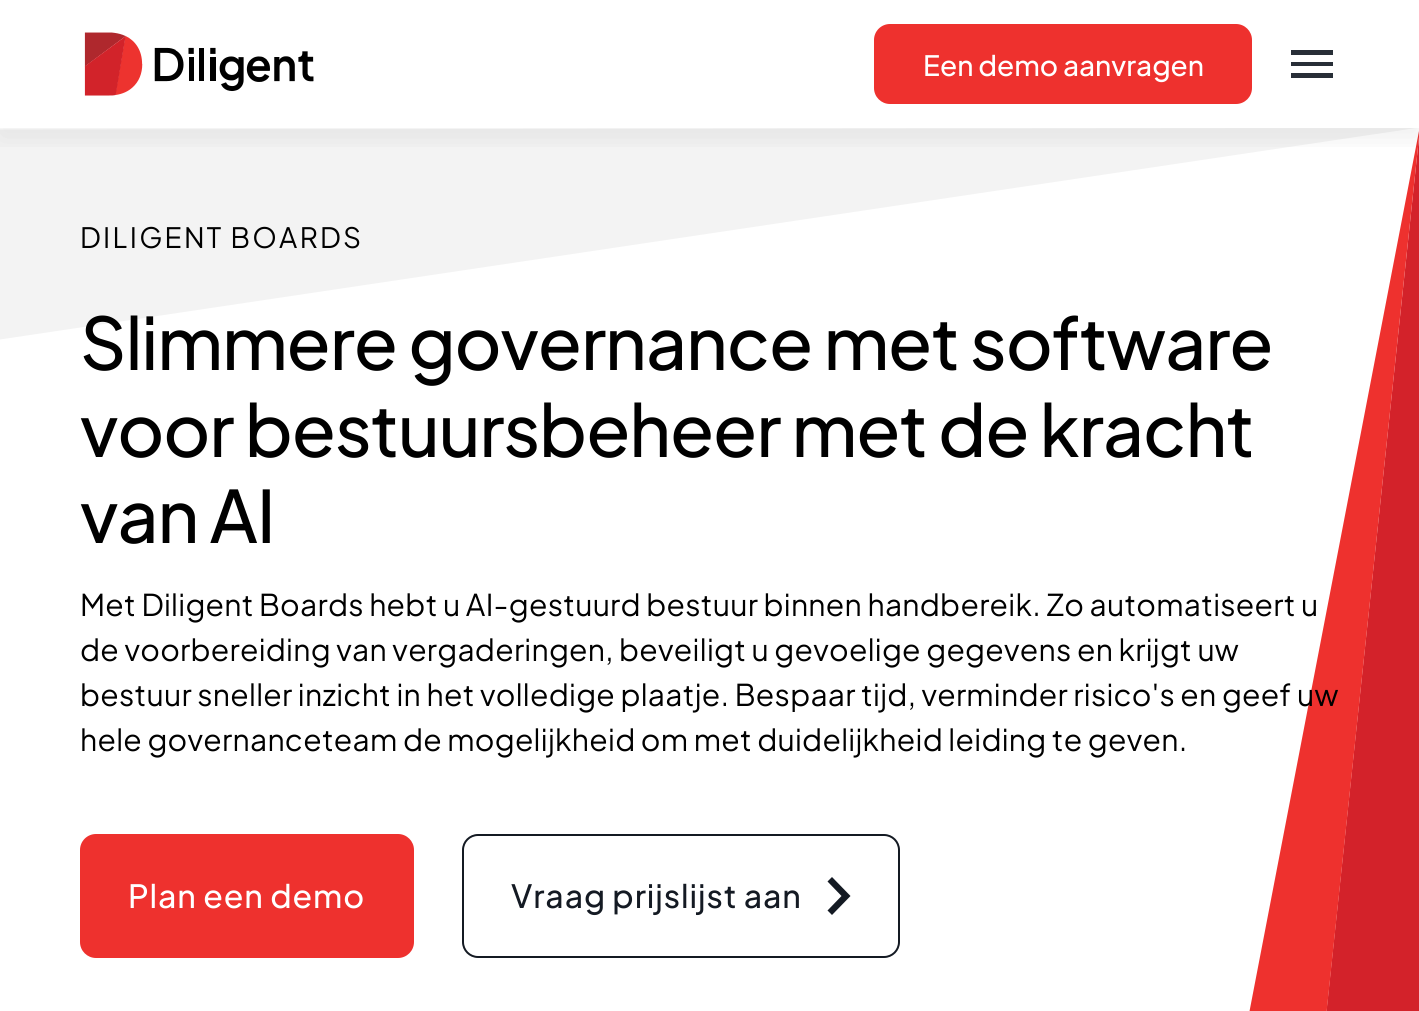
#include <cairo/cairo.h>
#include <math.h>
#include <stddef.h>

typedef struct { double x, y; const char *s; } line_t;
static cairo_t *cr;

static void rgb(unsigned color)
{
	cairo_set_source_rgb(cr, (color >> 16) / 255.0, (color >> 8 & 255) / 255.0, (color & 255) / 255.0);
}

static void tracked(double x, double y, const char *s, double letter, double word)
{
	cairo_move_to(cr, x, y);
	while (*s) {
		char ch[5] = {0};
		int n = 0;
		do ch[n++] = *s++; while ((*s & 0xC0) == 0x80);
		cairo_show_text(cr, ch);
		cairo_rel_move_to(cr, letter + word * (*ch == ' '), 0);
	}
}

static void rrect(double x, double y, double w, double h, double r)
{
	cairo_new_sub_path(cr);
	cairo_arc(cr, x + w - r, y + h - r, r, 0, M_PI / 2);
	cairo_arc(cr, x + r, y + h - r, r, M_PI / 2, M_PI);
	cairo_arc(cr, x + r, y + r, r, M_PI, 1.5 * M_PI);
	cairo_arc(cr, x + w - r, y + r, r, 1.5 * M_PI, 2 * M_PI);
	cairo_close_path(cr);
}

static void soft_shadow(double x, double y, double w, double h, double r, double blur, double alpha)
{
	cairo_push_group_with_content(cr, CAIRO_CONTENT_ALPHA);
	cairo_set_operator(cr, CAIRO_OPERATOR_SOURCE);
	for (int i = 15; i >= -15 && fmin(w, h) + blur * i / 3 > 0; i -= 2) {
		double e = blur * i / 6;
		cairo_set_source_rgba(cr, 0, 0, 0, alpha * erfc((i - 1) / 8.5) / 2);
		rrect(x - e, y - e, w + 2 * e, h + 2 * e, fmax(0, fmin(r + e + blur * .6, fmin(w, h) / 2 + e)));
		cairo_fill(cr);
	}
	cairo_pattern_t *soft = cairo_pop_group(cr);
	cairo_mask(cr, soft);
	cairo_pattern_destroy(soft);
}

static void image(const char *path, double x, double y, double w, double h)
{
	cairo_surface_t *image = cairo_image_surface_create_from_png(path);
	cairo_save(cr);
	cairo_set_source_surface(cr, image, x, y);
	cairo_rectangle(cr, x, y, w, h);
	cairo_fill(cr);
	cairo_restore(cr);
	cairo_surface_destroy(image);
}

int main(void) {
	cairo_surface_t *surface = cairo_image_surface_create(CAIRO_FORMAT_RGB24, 1419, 1011);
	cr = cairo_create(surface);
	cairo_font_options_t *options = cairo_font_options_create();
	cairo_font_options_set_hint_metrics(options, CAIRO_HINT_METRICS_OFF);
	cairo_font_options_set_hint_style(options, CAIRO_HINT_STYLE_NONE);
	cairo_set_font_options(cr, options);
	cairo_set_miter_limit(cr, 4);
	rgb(0xffffff);
	cairo_paint(cr);
	rgb(0xf3f3f3);
	cairo_new_path(cr);
	cairo_move_to(cr, 1416, 128);
	cairo_line_to(cr, -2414, 132);
	cairo_line_to(cr, -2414, 700);
	cairo_close_path(cr);
	cairo_fill(cr);
	rgb(0xd3222a);
	cairo_new_path(cr);
	cairo_move_to(cr, 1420, 128);
	cairo_line_to(cr, 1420, 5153);
	cairo_line_to(cr, 888, 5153);
	cairo_close_path(cr);
	cairo_fill(cr);
	rgb(0xee312e);
	cairo_new_path(cr);
	cairo_move_to(cr, 1419, 131);
	cairo_line_to(cr, 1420, 128);
	cairo_line_to(cr, 889, 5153);
	cairo_line_to(cr, 452, 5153);
	cairo_close_path(cr);
	cairo_fill(cr);
	cairo_save(cr);
	cairo_rectangle(cr, 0, 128, 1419, 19);
	cairo_clip(cr);
	rgb(0x1f1f1f);
	soft_shadow(0, 8, 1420, 128, 0, 16, 0.08);
	cairo_restore(cr);
	image("img/1.png", 84, 32, 230, 64);
	rrect(874, 24, 378, 80, 16);
	cairo_fill(cr);
	rgb(0x282e37);
	cairo_new_path(cr);
	cairo_move_to(cr, 1291, 78);
	cairo_line_to(cr, 1333, 78);
	cairo_line_to(cr, 1333, 73);
	cairo_line_to(cr, 1291, 73);
	cairo_close_path(cr);
	cairo_move_to(cr, 1291, 66);
	cairo_line_to(cr, 1333, 66);
	cairo_line_to(cr, 1333, 62);
	cairo_line_to(cr, 1291, 62);
	cairo_close_path(cr);
	cairo_move_to(cr, 1291, 50);
	cairo_line_to(cr, 1291, 55);
	cairo_line_to(cr, 1333, 55);
	cairo_line_to(cr, 1333, 50);
	cairo_close_path(cr);
	cairo_fill(cr);
	rgb(0xee312e);
	rrect(80, 834, 334, 124, 16);
	cairo_fill(cr);
	rrect(463, 835, 436, 122, 15);
	rgb(0x141a23);
	cairo_stroke(cr);
	cairo_new_path(cr);
	cairo_move_to(cr, 850.5, 896);
	cairo_line_to(cr, 832, 877);
	cairo_line_to(cr, 827.5, 881.5);
	cairo_line_to(cr, 841.5, 896);
	cairo_line_to(cr, 827.5, 910.5);
	cairo_line_to(cr, 832, 915);
	cairo_close_path(cr);
	cairo_fill(cr);
	cairo_select_font_face(cr, "Plus Jakarta Sans Medium", CAIRO_FONT_SLANT_NORMAL, CAIRO_FONT_WEIGHT_NORMAL);
	cairo_set_font_size(cr, 28);
	rgb(0xffffff);
	cairo_move_to(cr, 923, 76);
	cairo_show_text(cr, "Een demo aanvragen");
	cairo_select_font_face(cr, "Plus Jakarta Sans", CAIRO_FONT_SLANT_NORMAL, CAIRO_FONT_WEIGHT_NORMAL);
	rgb(0x000000);
	tracked(80, 248, "DILIGENT BOARDS", 2.3, 0);
	cairo_select_font_face(cr, "Plus Jakarta Sans Medium", CAIRO_FONT_SLANT_NORMAL, CAIRO_FONT_WEIGHT_NORMAL);
	cairo_set_font_size(cr, 72);
	{
		static const line_t items[] = {
			{80, 370, "Slimmere governance met software"},
			{80, 457, "voor bestuursbeheer met de kracht"},
			{80, 543, "van AI"},
		};
		for (size_t i = 0; i < sizeof items / sizeof *items; i++) {
			tracked(items[i].x, items[i].y, items[i].s, -1.1, 0);
		}
	}
	cairo_select_font_face(cr, "Plus Jakarta Sans", CAIRO_FONT_SLANT_NORMAL, CAIRO_FONT_WEIGHT_NORMAL);
	cairo_set_font_size(cr, 30);
	{
		static const line_t items[] = {
			{80, 616, "Met Diligent Boards hebt u AI-gestuurd bestuur binnen handbereik. Zo automatiseert u"},
			{80, 661, "de voorbereiding van vergaderingen, beveiligt u gevoelige gegevens en krijgt uw"},
			{80, 706, "bestuur sneller inzicht in het volledige plaatje. Bespaar tijd, verminder risico's en geef uw"},
			{80, 751, "hele governanceteam de mogelijkheid om met duidelijkheid leiding te geven."},
		};
		for (size_t i = 0; i < sizeof items / sizeof *items; i++) {
			tracked(items[i].x, items[i].y, items[i].s, 0.28, 0);
		}
	}
	cairo_select_font_face(cr, "Plus Jakarta Sans Medium", CAIRO_FONT_SLANT_NORMAL, CAIRO_FONT_WEIGHT_NORMAL);
	cairo_set_font_size(cr, 32);
	rgb(0xffffff);
	tracked(128, 908, "Plan een demo", 0.9, 0);
	rgb(0x141a23);
	tracked(511, 908, "Vraag prijslijst aan", 0.9, 0);
	cairo_surface_write_to_png(surface, "page.png");
	cairo_font_options_destroy(options);
	cairo_destroy(cr);
	cairo_surface_destroy(surface);
	return 0;
}
